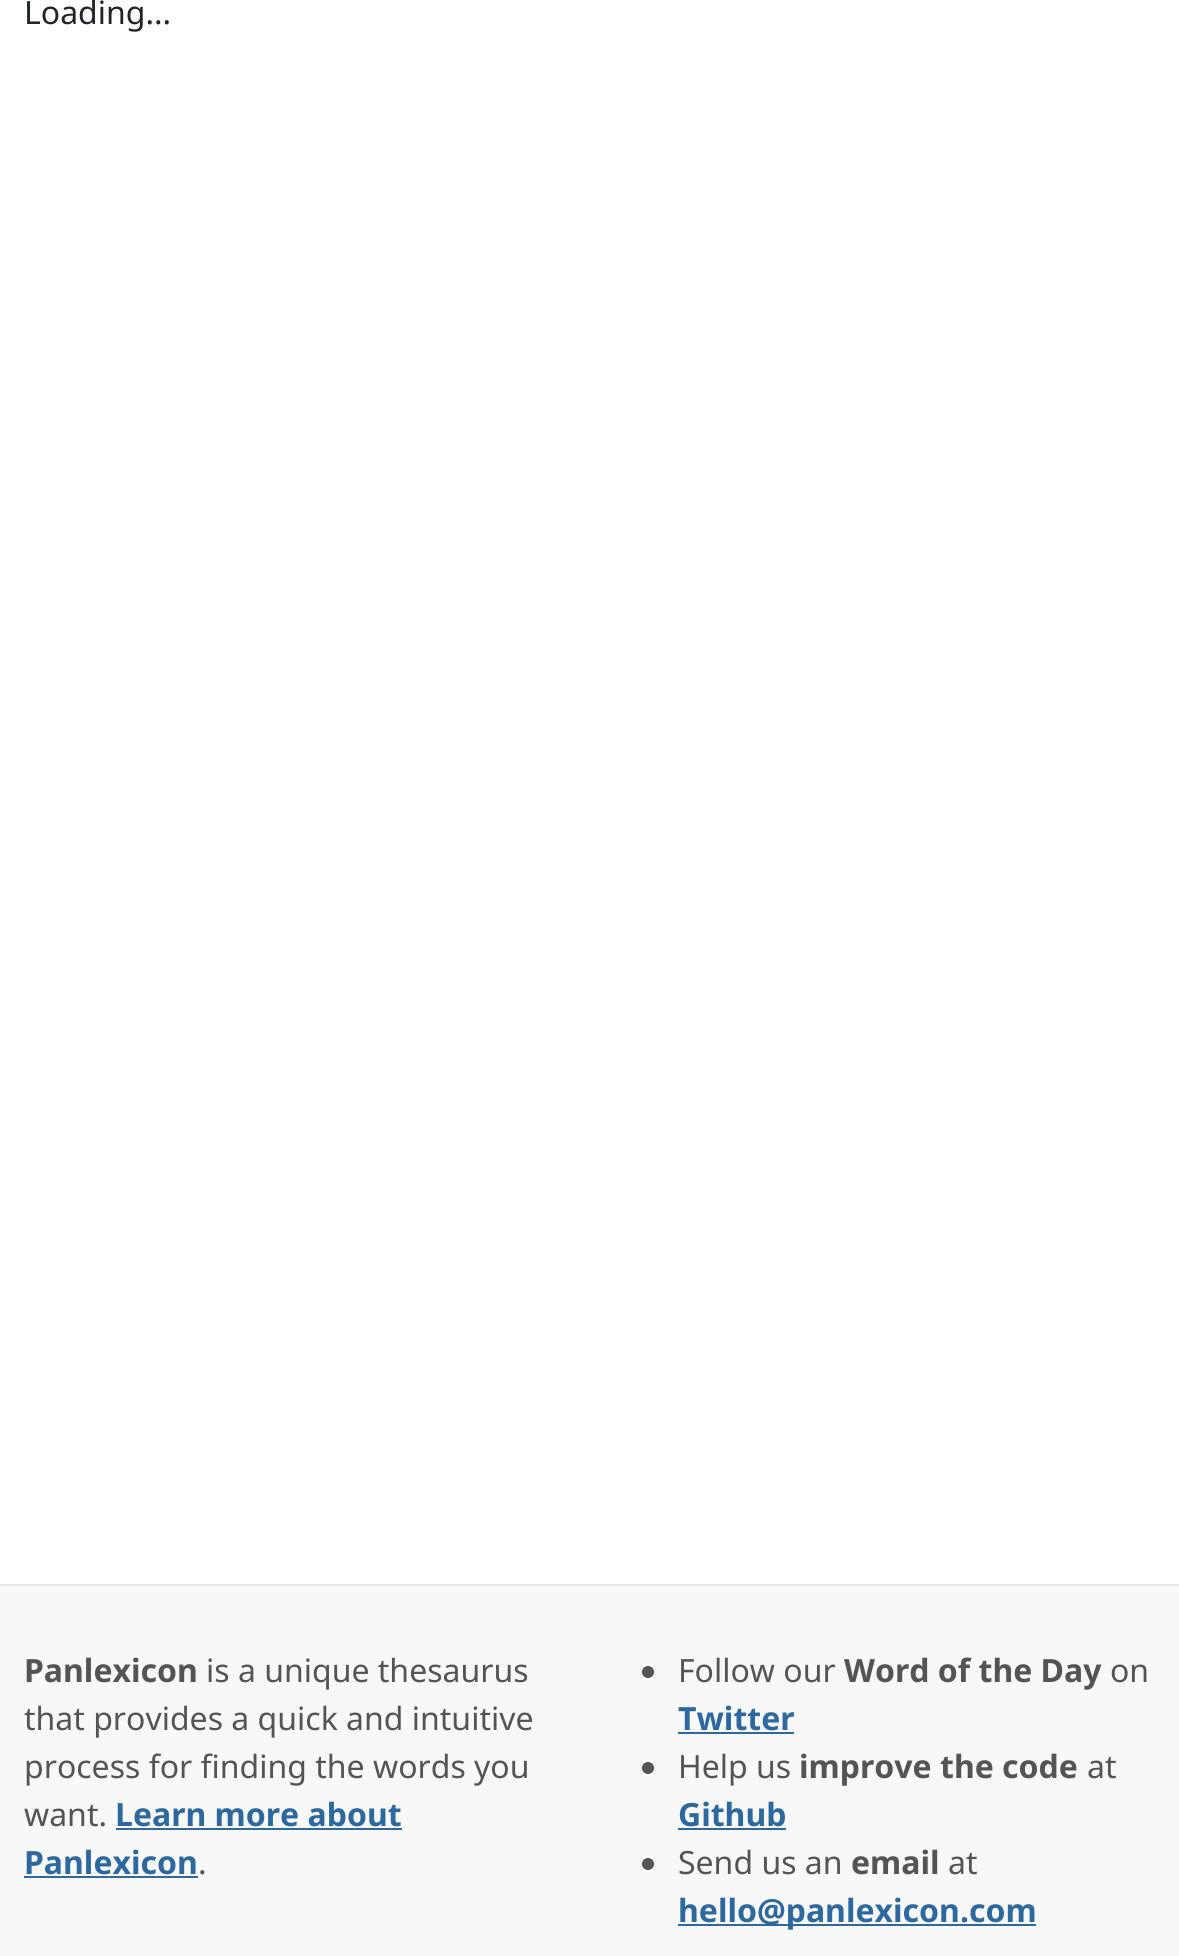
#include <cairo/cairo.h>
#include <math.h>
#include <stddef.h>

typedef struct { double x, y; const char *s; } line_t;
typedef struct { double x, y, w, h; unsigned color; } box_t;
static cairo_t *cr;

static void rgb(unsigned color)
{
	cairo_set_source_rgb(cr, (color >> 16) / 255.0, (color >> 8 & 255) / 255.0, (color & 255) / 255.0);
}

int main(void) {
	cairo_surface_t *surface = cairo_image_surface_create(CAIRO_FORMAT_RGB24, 1179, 1956);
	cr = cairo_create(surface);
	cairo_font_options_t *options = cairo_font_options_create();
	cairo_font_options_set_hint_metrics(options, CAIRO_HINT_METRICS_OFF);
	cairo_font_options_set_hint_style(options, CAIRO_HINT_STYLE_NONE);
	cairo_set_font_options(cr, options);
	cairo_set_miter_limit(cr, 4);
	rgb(0xffffff);
	cairo_paint(cr);
	{
		static const box_t items[] = {
			{0, 1586, 1179, 370, 0xf8f8f8},
			{0, 1584, 1179, 2, 0xe7e7e7},
			{116, 1828, 286, 2, 0x2d699e},
			{24, 1876, 174, 2, 0x2d699e},
		};
		for (size_t i = 0; i < sizeof items / sizeof *items; i++) {
			rgb(items[i].color);
			cairo_rectangle(cr, items[i].x, items[i].y, items[i].w, items[i].h);
			cairo_fill(cr);
		}
	}
	rgb(0x545454);
	cairo_arc(cr, 648, 1672, 6, 0, 2 * M_PI);
	cairo_fill(cr);
	rgb(0x2d699e);
	cairo_rectangle(cr, 678, 1732, 116, 2);
	cairo_fill(cr);
	rgb(0x545454);
	cairo_arc(cr, 648, 1768, 6, 0, 2 * M_PI);
	cairo_fill(cr);
	rgb(0x2d699e);
	cairo_rectangle(cr, 678, 1828, 108, 2);
	cairo_fill(cr);
	rgb(0x545454);
	cairo_arc(cr, 648, 1864, 6, 0, 2 * M_PI);
	cairo_fill(cr);
	rgb(0x2d699e);
	cairo_rectangle(cr, 678, 1924, 358, 2);
	cairo_fill(cr);
	cairo_select_font_face(cr, "Noto Sans", CAIRO_FONT_SLANT_NORMAL, CAIRO_FONT_WEIGHT_NORMAL);
	cairo_set_font_size(cr, 32);
	rgb(0x212529);
	cairo_move_to(cr, 24, 24);
	cairo_show_text(cr, "Loading...");
	cairo_select_font_face(cr, "Noto Sans", CAIRO_FONT_SLANT_NORMAL, CAIRO_FONT_WEIGHT_BOLD);
	rgb(0x545454);
	cairo_move_to(cr, 24, 1682);
	cairo_show_text(cr, "Panlexicon");
	cairo_select_font_face(cr, "Noto Sans", CAIRO_FONT_SLANT_NORMAL, CAIRO_FONT_WEIGHT_NORMAL);
	{
		static const line_t items[] = {
			{206, 1682, "is a unique thesaurus"},
			{24, 1730, "that provides a quick and intuitive"},
			{24, 1778, "process for finding the words you"},
			{24, 1826, "want."},
		};
		for (size_t i = 0; i < sizeof items / sizeof *items; i++) {
			cairo_move_to(cr, items[i].x, items[i].y);
			cairo_show_text(cr, items[i].s);
		}
	}
	cairo_select_font_face(cr, "Noto Sans", CAIRO_FONT_SLANT_NORMAL, CAIRO_FONT_WEIGHT_BOLD);
	rgb(0x2d699e);
	cairo_move_to(cr, 115, 1826);
	cairo_show_text(cr, "Learn more about");
	cairo_move_to(cr, 24, 1874);
	cairo_show_text(cr, "Panlexicon");
	cairo_select_font_face(cr, "Noto Sans", CAIRO_FONT_SLANT_NORMAL, CAIRO_FONT_WEIGHT_NORMAL);
	rgb(0x545454);
	cairo_move_to(cr, 198, 1874);
	cairo_show_text(cr, ".");
	cairo_move_to(cr, 678, 1682);
	cairo_show_text(cr, "Follow our");
	cairo_select_font_face(cr, "Noto Sans", CAIRO_FONT_SLANT_NORMAL, CAIRO_FONT_WEIGHT_BOLD);
	cairo_move_to(cr, 844, 1682);
	cairo_show_text(cr, "Word of the Day");
	cairo_select_font_face(cr, "Noto Sans", CAIRO_FONT_SLANT_NORMAL, CAIRO_FONT_WEIGHT_NORMAL);
	cairo_move_to(cr, 1110, 1682);
	cairo_show_text(cr, "on");
	cairo_select_font_face(cr, "Noto Sans", CAIRO_FONT_SLANT_NORMAL, CAIRO_FONT_WEIGHT_BOLD);
	rgb(0x2d699e);
	cairo_move_to(cr, 678, 1730);
	cairo_show_text(cr, "Twitter");
	cairo_select_font_face(cr, "Noto Sans", CAIRO_FONT_SLANT_NORMAL, CAIRO_FONT_WEIGHT_NORMAL);
	rgb(0x545454);
	cairo_move_to(cr, 678, 1778);
	cairo_show_text(cr, "Help us");
	cairo_select_font_face(cr, "Noto Sans", CAIRO_FONT_SLANT_NORMAL, CAIRO_FONT_WEIGHT_BOLD);
	cairo_move_to(cr, 799, 1778);
	cairo_show_text(cr, "improve the code");
	cairo_select_font_face(cr, "Noto Sans", CAIRO_FONT_SLANT_NORMAL, CAIRO_FONT_WEIGHT_NORMAL);
	cairo_move_to(cr, 1087, 1778);
	cairo_show_text(cr, "at");
	cairo_select_font_face(cr, "Noto Sans", CAIRO_FONT_SLANT_NORMAL, CAIRO_FONT_WEIGHT_BOLD);
	rgb(0x2d699e);
	cairo_move_to(cr, 678, 1826);
	cairo_show_text(cr, "Github");
	cairo_select_font_face(cr, "Noto Sans", CAIRO_FONT_SLANT_NORMAL, CAIRO_FONT_WEIGHT_NORMAL);
	rgb(0x545454);
	cairo_move_to(cr, 678, 1874);
	cairo_show_text(cr, "Send us an");
	cairo_select_font_face(cr, "Noto Sans", CAIRO_FONT_SLANT_NORMAL, CAIRO_FONT_WEIGHT_BOLD);
	cairo_move_to(cr, 851, 1874);
	cairo_show_text(cr, "email");
	cairo_select_font_face(cr, "Noto Sans", CAIRO_FONT_SLANT_NORMAL, CAIRO_FONT_WEIGHT_NORMAL);
	cairo_move_to(cr, 948, 1874);
	cairo_show_text(cr, "at");
	cairo_select_font_face(cr, "Noto Sans", CAIRO_FONT_SLANT_NORMAL, CAIRO_FONT_WEIGHT_BOLD);
	rgb(0x2d699e);
	cairo_move_to(cr, 678, 1922);
	cairo_show_text(cr, "hello@panlexicon.com");
	cairo_surface_write_to_png(surface, "page.png");
	cairo_font_options_destroy(options);
	cairo_destroy(cr);
	cairo_surface_destroy(surface);
	return 0;
}
